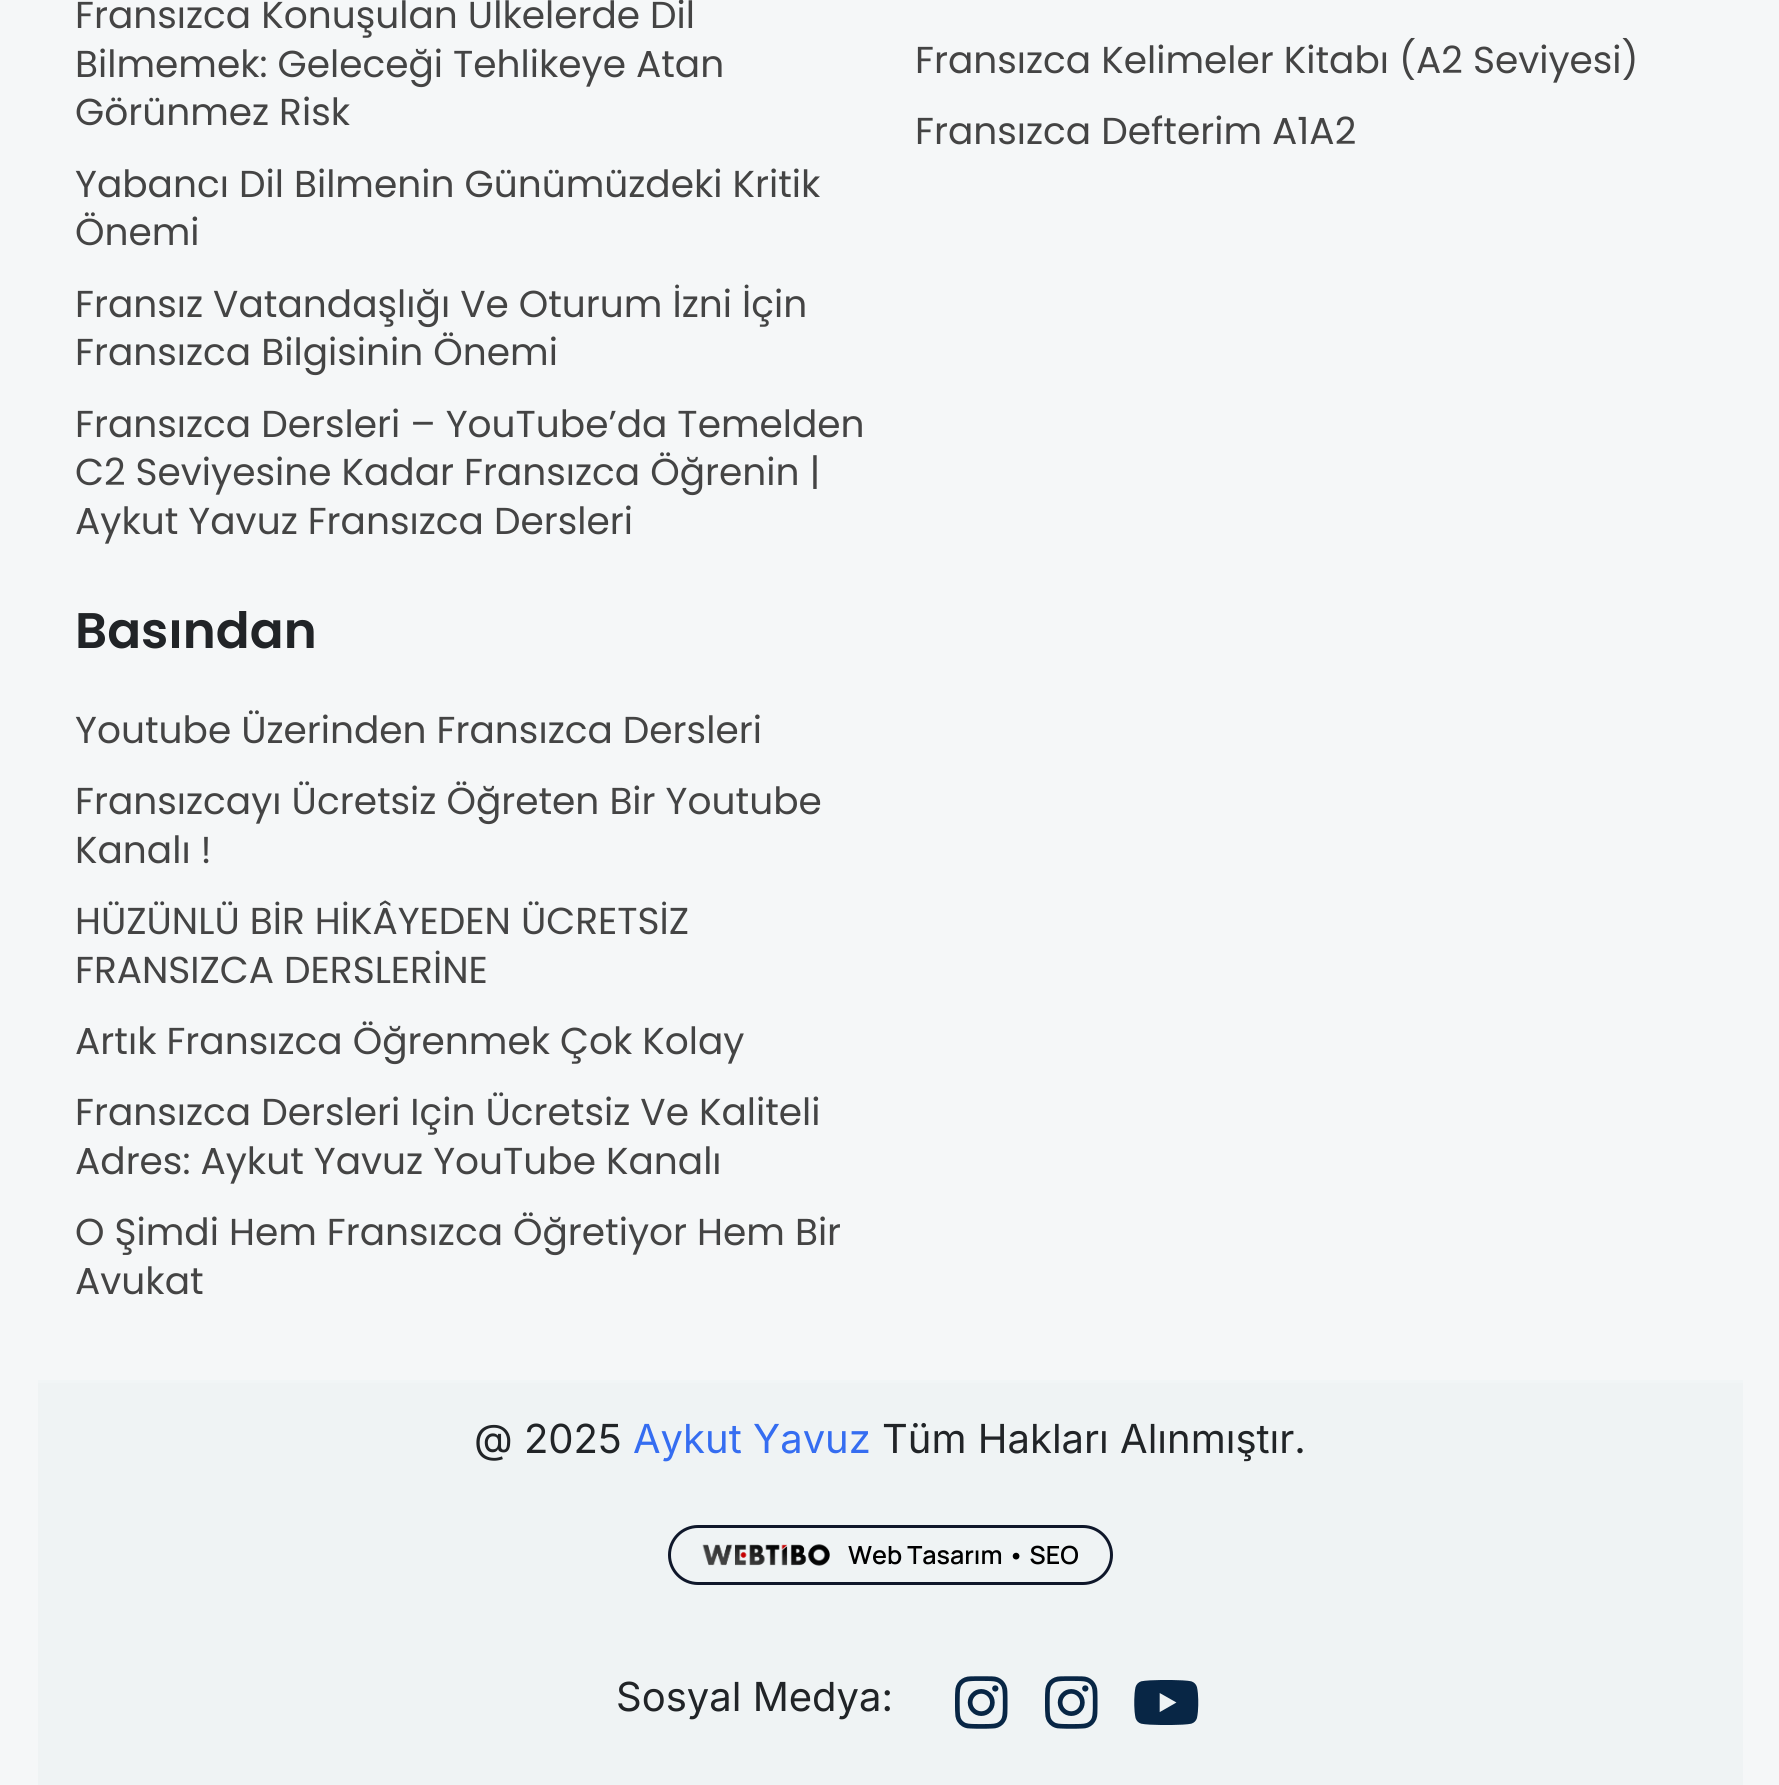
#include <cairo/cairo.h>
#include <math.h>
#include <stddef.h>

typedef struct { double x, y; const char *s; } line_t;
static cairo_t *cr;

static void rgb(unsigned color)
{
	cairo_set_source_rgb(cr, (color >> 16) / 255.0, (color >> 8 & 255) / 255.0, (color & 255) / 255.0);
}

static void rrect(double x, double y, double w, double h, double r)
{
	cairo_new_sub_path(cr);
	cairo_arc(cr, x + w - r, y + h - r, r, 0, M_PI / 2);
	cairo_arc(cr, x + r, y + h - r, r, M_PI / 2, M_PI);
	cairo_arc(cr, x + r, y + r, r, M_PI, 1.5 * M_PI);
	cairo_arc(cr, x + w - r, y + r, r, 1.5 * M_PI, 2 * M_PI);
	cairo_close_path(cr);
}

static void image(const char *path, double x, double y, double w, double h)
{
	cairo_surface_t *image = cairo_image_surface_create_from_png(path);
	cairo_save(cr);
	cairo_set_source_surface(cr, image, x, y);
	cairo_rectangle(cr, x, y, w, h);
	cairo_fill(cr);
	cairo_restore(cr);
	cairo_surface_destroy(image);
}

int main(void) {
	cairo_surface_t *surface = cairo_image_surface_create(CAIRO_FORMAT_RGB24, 1779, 1785);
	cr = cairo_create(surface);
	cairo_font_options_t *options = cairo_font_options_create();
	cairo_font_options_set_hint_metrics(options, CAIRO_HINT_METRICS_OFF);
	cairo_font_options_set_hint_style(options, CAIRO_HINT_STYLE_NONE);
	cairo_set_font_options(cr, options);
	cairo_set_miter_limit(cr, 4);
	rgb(0xf5f7f8);
	cairo_paint(cr);
	rgb(0xeff3f4);
	cairo_rectangle(cr, 38, 1383, 1705, 402);
	cairo_fill(cr);
	rgb(0xf1f5f6);
	cairo_rectangle(cr, 38, 1380, 1705, 3);
	cairo_fill(cr);
	rrect(669.5, 1526.5, 442, 57, 28.5);
	rgb(0x0f172a);
	cairo_set_line_width(cr, 3);
	cairo_stroke(cr);
	image("img/1.png", 702, 1544, 128, 22);
	image("img/2.png", 955, 1676, 53, 53);
	image("img/2.png", 1045, 1676, 53, 53);
	image("img/3.png", 1134, 1680, 65, 45);
	cairo_select_font_face(cr, "Poppins", CAIRO_FONT_SLANT_NORMAL, CAIRO_FONT_WEIGHT_NORMAL);
	cairo_set_font_size(cr, 37.5);
	rgb(0x444444);
	{
		static const line_t items[] = {
			{75, 28, "Fransızca Konuşulan Ülkelerde Dil"},
			{75, 77, "Bilmemek: Geleceği Tehlikeye Atan"},
			{75, 125, "Görünmez Risk"},
			{75, 197, "Yabancı Dil Bilmenin Günümüzdeki Kritik"},
			{75, 245, "Önemi"},
			{75, 317, "Fransız Vatandaşlığı Ve Oturum İzni İçin"},
			{75, 365, "Fransızca Bilgisinin Önemi"},
			{75, 437, "Fransızca Dersleri – YouTube’da Temelden"},
			{75, 485, "C2 Seviyesine Kadar Fransızca Öğrenin |"},
			{75, 534, "Aykut Yavuz Fransızca Dersleri"},
			{915, 73, "Fransızca Kelimeler Kitabı (A2 Seviyesi)"},
			{915, 144, "Fransızca Defterim A1A2"},
		};
		for (size_t i = 0; i < sizeof items / sizeof *items; i++) {
			cairo_move_to(cr, items[i].x, items[i].y);
			cairo_show_text(cr, items[i].s);
		}
	}
	cairo_select_font_face(cr, "Poppins SemiBold", CAIRO_FONT_SLANT_NORMAL, CAIRO_FONT_WEIGHT_NORMAL);
	cairo_set_font_size(cr, 50);
	rgb(0x212427);
	cairo_move_to(cr, 75, 648);
	cairo_show_text(cr, "Basından");
	cairo_select_font_face(cr, "Poppins", CAIRO_FONT_SLANT_NORMAL, CAIRO_FONT_WEIGHT_NORMAL);
	cairo_set_font_size(cr, 37.5);
	rgb(0x444444);
	{
		static const line_t items[] = {
			{75, 743, "Youtube Üzerinden Fransızca Dersleri"},
			{75, 814, "Fransızcayı Ücretsiz Öğreten Bir Youtube"},
			{75, 863, "Kanalı !"},
			{75, 934, "HÜZÜNLÜ BİR HİKÂYEDEN ÜCRETSİZ"},
			{75, 983, "FRANSIZCA DERSLERİNE"},
			{75, 1054, "Artık Fransızca Öğrenmek Çok Kolay"},
			{75, 1125, "Fransızca Dersleri Için Ücretsiz Ve Kaliteli"},
			{75, 1174, "Adres: Aykut Yavuz YouTube Kanalı"},
			{75, 1245, "O Şimdi Hem Fransızca Öğretiyor Hem Bir"},
			{75, 1294, "Avukat"},
		};
		for (size_t i = 0; i < sizeof items / sizeof *items; i++) {
			cairo_move_to(cr, items[i].x, items[i].y);
			cairo_show_text(cr, items[i].s);
		}
	}
	cairo_select_font_face(cr, "Inter", CAIRO_FONT_SLANT_NORMAL, CAIRO_FONT_WEIGHT_NORMAL);
	cairo_set_font_size(cr, 40);
	rgb(0x212427);
	cairo_move_to(cr, 474, 1453);
	cairo_show_text(cr, "@ 2025");
	rgb(0x356df1);
	cairo_move_to(cr, 633, 1453);
	cairo_show_text(cr, "Aykut Yavuz");
	rgb(0x212427);
	cairo_move_to(cr, 882, 1453);
	cairo_show_text(cr, "Tüm Hakları Alınmıştır.");
	cairo_select_font_face(cr, "Manrope SemiBold", CAIRO_FONT_SLANT_NORMAL, CAIRO_FONT_WEIGHT_NORMAL);
	cairo_set_font_size(cr, 25);
	rgb(0x000000);
	cairo_move_to(cr, 848, 1564);
	cairo_show_text(cr, "Web Tasarım • SEO");
	cairo_select_font_face(cr, "Inter", CAIRO_FONT_SLANT_NORMAL, CAIRO_FONT_WEIGHT_NORMAL);
	cairo_set_font_size(cr, 40);
	rgb(0x212427);
	cairo_move_to(cr, 616, 1711);
	cairo_show_text(cr, "Sosyal Medya:");
	cairo_surface_write_to_png(surface, "page.png");
	cairo_font_options_destroy(options);
	cairo_destroy(cr);
	cairo_surface_destroy(surface);
	return 0;
}
